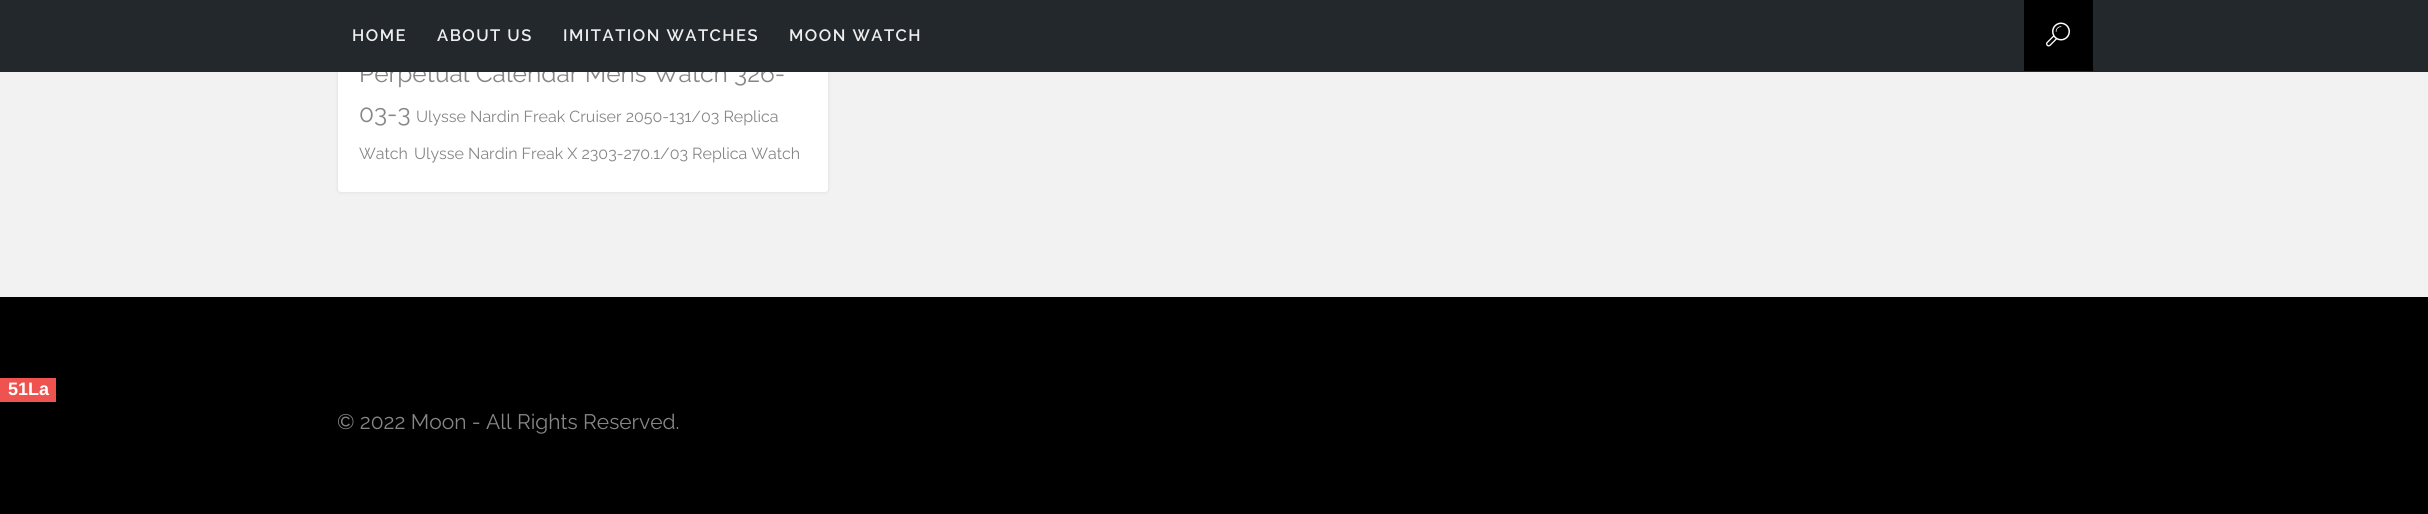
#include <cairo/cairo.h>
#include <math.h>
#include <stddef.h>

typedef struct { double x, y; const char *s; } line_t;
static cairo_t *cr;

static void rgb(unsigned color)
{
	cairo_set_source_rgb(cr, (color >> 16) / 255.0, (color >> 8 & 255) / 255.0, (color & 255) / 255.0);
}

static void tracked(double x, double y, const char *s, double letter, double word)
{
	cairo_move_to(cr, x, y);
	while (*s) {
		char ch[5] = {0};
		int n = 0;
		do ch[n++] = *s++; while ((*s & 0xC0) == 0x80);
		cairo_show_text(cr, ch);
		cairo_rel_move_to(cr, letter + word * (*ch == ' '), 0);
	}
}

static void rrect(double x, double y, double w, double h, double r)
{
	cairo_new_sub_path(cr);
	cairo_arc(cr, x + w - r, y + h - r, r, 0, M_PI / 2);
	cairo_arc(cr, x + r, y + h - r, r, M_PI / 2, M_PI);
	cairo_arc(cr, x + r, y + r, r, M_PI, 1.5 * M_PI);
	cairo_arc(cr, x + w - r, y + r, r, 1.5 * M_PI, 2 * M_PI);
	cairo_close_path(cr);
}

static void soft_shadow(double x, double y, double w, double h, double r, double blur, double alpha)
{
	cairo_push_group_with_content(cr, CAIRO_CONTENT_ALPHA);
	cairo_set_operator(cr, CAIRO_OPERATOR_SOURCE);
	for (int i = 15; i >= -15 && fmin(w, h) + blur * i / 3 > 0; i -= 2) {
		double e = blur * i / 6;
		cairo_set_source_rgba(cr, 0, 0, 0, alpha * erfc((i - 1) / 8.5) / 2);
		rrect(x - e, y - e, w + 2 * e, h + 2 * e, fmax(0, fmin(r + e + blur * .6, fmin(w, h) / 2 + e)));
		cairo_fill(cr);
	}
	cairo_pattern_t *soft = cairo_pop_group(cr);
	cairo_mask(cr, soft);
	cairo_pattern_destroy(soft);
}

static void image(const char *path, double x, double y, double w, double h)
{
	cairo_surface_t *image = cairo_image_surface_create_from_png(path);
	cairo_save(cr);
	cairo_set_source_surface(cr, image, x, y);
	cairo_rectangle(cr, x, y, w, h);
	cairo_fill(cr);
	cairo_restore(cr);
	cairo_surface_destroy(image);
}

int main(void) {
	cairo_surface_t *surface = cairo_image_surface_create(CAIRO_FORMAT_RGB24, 2428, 514);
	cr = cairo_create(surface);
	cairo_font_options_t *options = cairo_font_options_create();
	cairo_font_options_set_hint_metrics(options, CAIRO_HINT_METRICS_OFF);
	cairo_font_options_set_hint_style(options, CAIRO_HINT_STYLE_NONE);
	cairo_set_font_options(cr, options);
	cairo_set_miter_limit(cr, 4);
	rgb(0x000000);
	cairo_paint(cr);
	rgb(0xf2f2f2);
	cairo_rectangle(cr, 0, 72, 2428, 225);
	cairo_fill(cr);
	rgb(0x000001);
	soft_shadow(338, -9, 490, 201, 3, 2, 0.1);
	rgb(0xffffff);
	rrect(338, -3, 490, 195, 3);
	cairo_fill(cr);
	rgb(0xef5350);
	cairo_rectangle(cr, 0, 378, 56, 24);
	cairo_fill(cr);
	cairo_select_font_face(cr, "Raleway", CAIRO_FONT_SLANT_NORMAL, CAIRO_FONT_WEIGHT_NORMAL);
	cairo_set_font_size(cr, 24.5);
	rgb(0x868686);
	cairo_move_to(cr, 359, 82);
	cairo_show_text(cr, "Perpetual Calendar Mens Watch 326-");
	rgb(0x23282d);
	cairo_rectangle(cr, 0, 0, 2428, 72);
	cairo_fill(cr);
	cairo_select_font_face(cr, "Raleway SemiBold", CAIRO_FONT_SLANT_NORMAL, CAIRO_FONT_WEIGHT_NORMAL);
	cairo_set_font_size(cr, 16.5);
	rgb(0xeeeeee);
	{
		static const line_t items[] = {
			{789, 41, "MOON WATCH"},
			{563, 41, "IMITATION WATCHES"},
			{437, 41, "ABOUT US"},
			{352, 41, "HOME"},
		};
		for (size_t i = 0; i < sizeof items / sizeof *items; i++) {
			tracked(items[i].x, items[i].y, items[i].s, 1.5, 0);
		}
	}
	rgb(0x000000);
	cairo_rectangle(cr, 2024, 0, 69, 71);
	cairo_fill(cr);
	image("img/1.png", 2046, 22, 24, 25);
	cairo_select_font_face(cr, "Raleway", CAIRO_FONT_SLANT_NORMAL, CAIRO_FONT_WEIGHT_NORMAL);
	cairo_set_font_size(cr, 24.5);
	rgb(0x868686);
	cairo_move_to(cr, 359, 122);
	cairo_show_text(cr, "03-3");
	cairo_set_font_size(cr, 16);
	{
		static const line_t items[] = {
			{416, 122, "Ulysse Nardin Freak Cruiser 2050-131/03 Replica"},
			{359, 159, "Watch"},
			{414, 159, "Ulysse Nardin Freak X 2303-270.1/03 Replica Watch"},
		};
		for (size_t i = 0; i < sizeof items / sizeof *items; i++) {
			cairo_move_to(cr, items[i].x, items[i].y);
			cairo_show_text(cr, items[i].s);
		}
	}
	cairo_select_font_face(cr, "Liberation Sans", CAIRO_FONT_SLANT_NORMAL, CAIRO_FONT_WEIGHT_BOLD);
	cairo_set_font_size(cr, 18);
	rgb(0xffffff);
	cairo_move_to(cr, 8, 395);
	cairo_show_text(cr, "51La");
	cairo_select_font_face(cr, "Raleway", CAIRO_FONT_SLANT_NORMAL, CAIRO_FONT_WEIGHT_NORMAL);
	cairo_set_font_size(cr, 21);
	rgb(0x868686);
	cairo_move_to(cr, 337, 429);
	cairo_show_text(cr, "© 2022 Moon - All Rights Reserved.");
	cairo_surface_write_to_png(surface, "page.png");
	cairo_font_options_destroy(options);
	cairo_destroy(cr);
	cairo_surface_destroy(surface);
	return 0;
}
